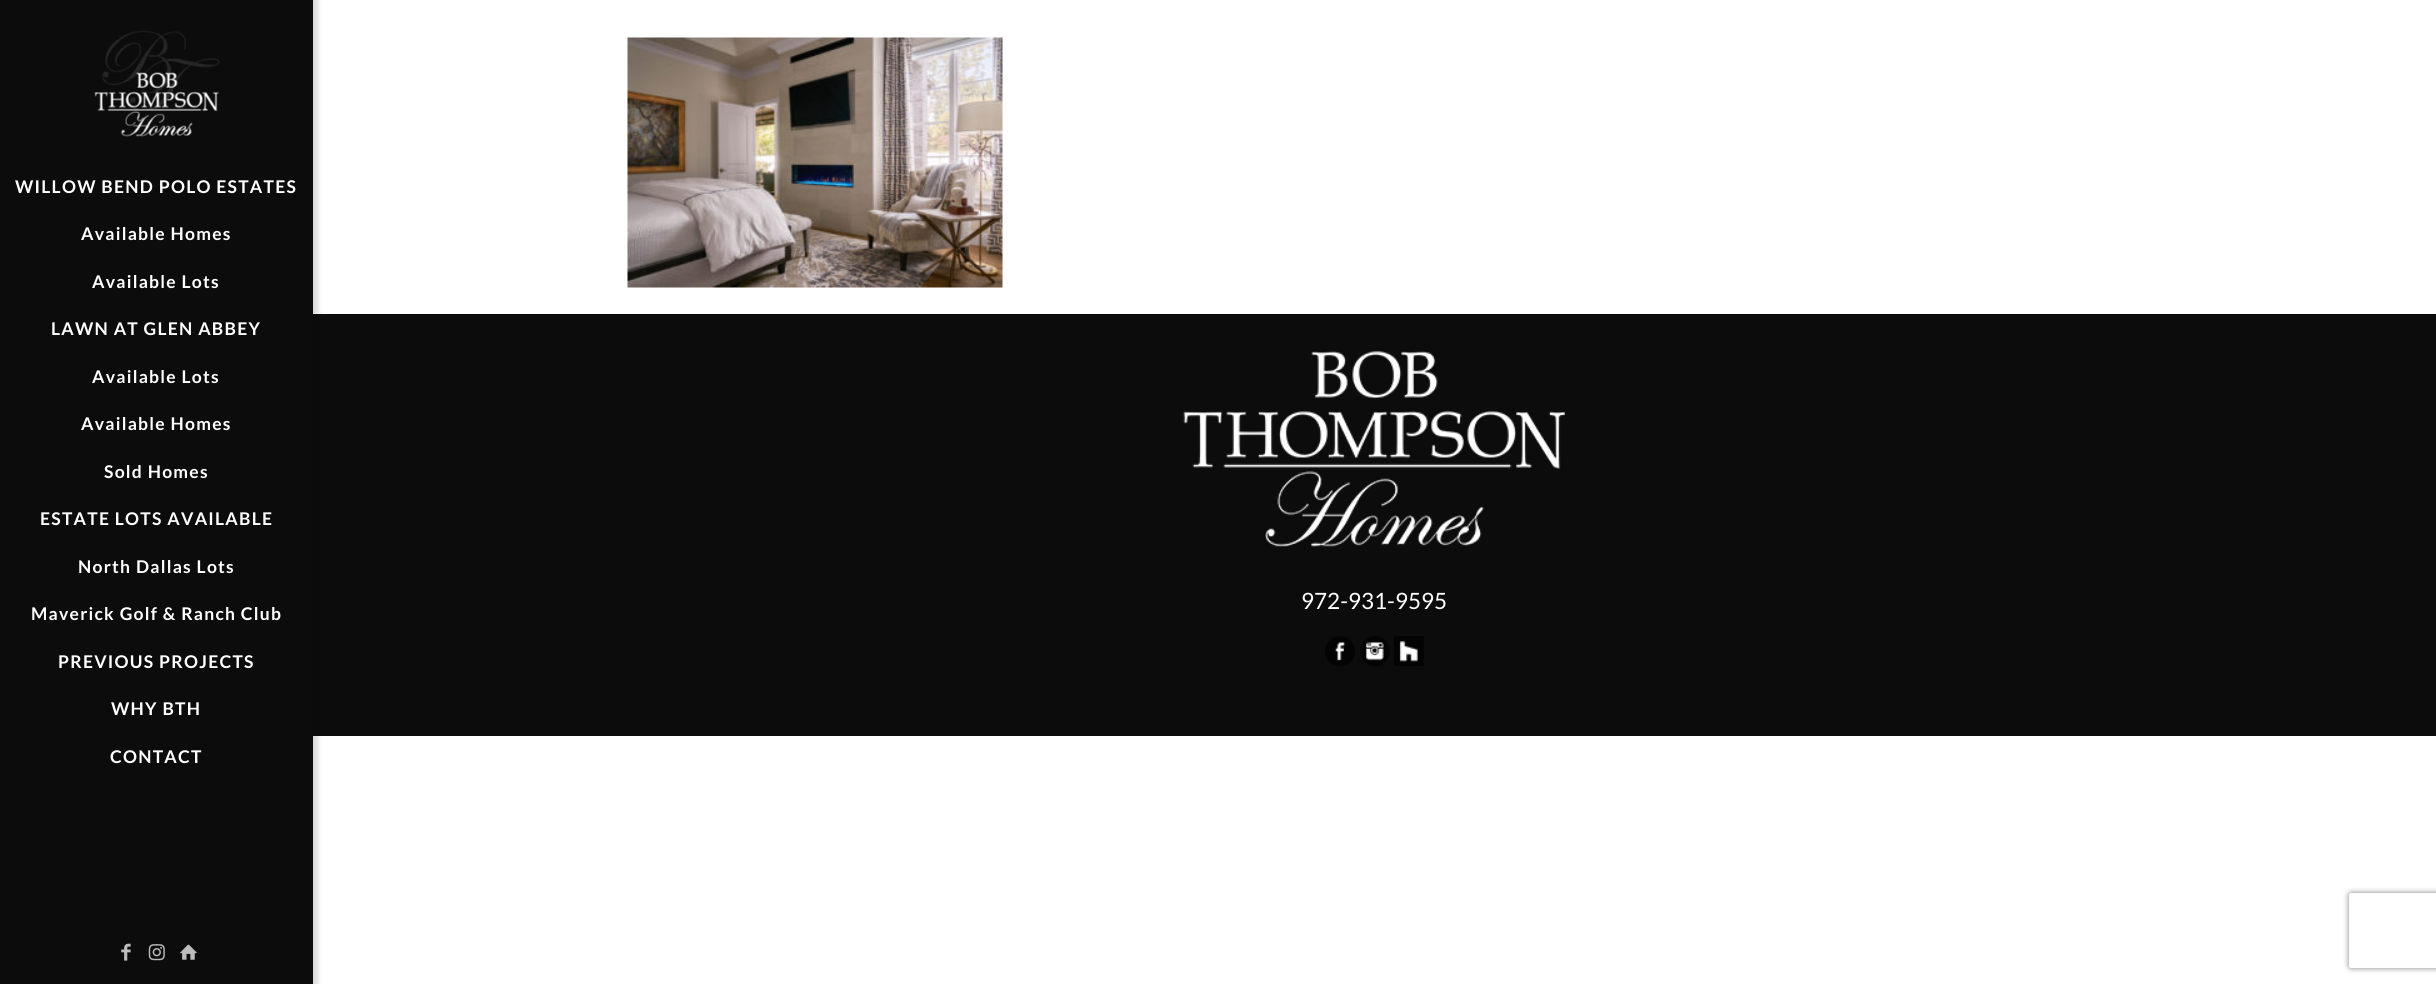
#include <cairo/cairo.h>
#include <math.h>
#include <stddef.h>

typedef struct { double x, y; const char *s; } line_t;
static cairo_t *cr;

static void rgb(unsigned color)
{
	cairo_set_source_rgb(cr, (color >> 16) / 255.0, (color >> 8 & 255) / 255.0, (color & 255) / 255.0);
}

static void tracked(double x, double y, const char *s, double letter, double word)
{
	cairo_move_to(cr, x, y);
	while (*s) {
		char ch[5] = {0};
		int n = 0;
		do ch[n++] = *s++; while ((*s & 0xC0) == 0x80);
		cairo_show_text(cr, ch);
		cairo_rel_move_to(cr, letter + word * (*ch == ' '), 0);
	}
}

static void rrect(double x, double y, double w, double h, double r)
{
	cairo_new_sub_path(cr);
	cairo_arc(cr, x + w - r, y + h - r, r, 0, M_PI / 2);
	cairo_arc(cr, x + r, y + h - r, r, M_PI / 2, M_PI);
	cairo_arc(cr, x + r, y + r, r, M_PI, 1.5 * M_PI);
	cairo_arc(cr, x + w - r, y + r, r, 1.5 * M_PI, 2 * M_PI);
	cairo_close_path(cr);
}

static void soft_shadow(double x, double y, double w, double h, double r, double blur, double alpha)
{
	cairo_push_group_with_content(cr, CAIRO_CONTENT_ALPHA);
	cairo_set_operator(cr, CAIRO_OPERATOR_SOURCE);
	for (int i = 15; i >= -15 && fmin(w, h) + blur * i / 3 > 0; i -= 2) {
		double e = blur * i / 6;
		cairo_set_source_rgba(cr, 0, 0, 0, alpha * erfc((i - 1) / 8.5) / 2);
		rrect(x - e, y - e, w + 2 * e, h + 2 * e, fmax(0, fmin(r + e + blur * .6, fmin(w, h) / 2 + e)));
		cairo_fill(cr);
	}
	cairo_pattern_t *soft = cairo_pop_group(cr);
	cairo_mask(cr, soft);
	cairo_pattern_destroy(soft);
}

static void image(const char *path, double x, double y, double w, double h)
{
	cairo_surface_t *image = cairo_image_surface_create_from_png(path);
	cairo_save(cr);
	cairo_set_source_surface(cr, image, x, y);
	cairo_rectangle(cr, x, y, w, h);
	cairo_fill(cr);
	cairo_restore(cr);
	cairo_surface_destroy(image);
}

int main(void) {
	cairo_surface_t *surface = cairo_image_surface_create(CAIRO_FORMAT_RGB24, 2436, 984);
	cr = cairo_create(surface);
	cairo_font_options_t *options = cairo_font_options_create();
	cairo_font_options_set_hint_metrics(options, CAIRO_HINT_METRICS_OFF);
	cairo_font_options_set_hint_style(options, CAIRO_HINT_STYLE_NONE);
	cairo_set_font_options(cr, options);
	cairo_set_miter_limit(cr, 4);
	rgb(0xffffff);
	cairo_paint(cr);
	rgb(0x0c0c0c);
	cairo_rectangle(cr, 313, 314, 2123, 422);
	cairo_fill(cr);
	rgb(0x030303);
	soft_shadow(0, -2, 318, 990, 0, 2.5, 0.15);
	rgb(0x0c0c0c);
	cairo_rectangle(cr, 0, 0, 313, 984);
	cairo_fill(cr);
	image("img/1.png", 94, 30, 126, 107);
	image("img/2.png", 121, 943, 10, 18);
	image("img/3.png", 148, 944, 17, 17);
	image("img/4.png", 180, 944, 17, 16);
	image("img/5.png", 627, 37, 376, 251);
	image("img/6.png", 1183, 351, 382, 196);
	image("img/7.png", 1325, 636, 30, 30);
	image("img/8.png", 1360, 636, 30, 30);
	image("img/9.png", 1394, 636, 30, 30);
	cairo_save(cr);
	cairo_set_fill_rule(cr, CAIRO_FILL_RULE_EVEN_ODD);
	cairo_new_path(cr);
	cairo_move_to(cr, 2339, 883);
	cairo_line_to(cr, 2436, 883);
	cairo_line_to(cr, 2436, 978);
	cairo_line_to(cr, 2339, 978);
	cairo_close_path(cr);
	cairo_move_to(cr, 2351.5, 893);
	cairo_line_to(cr, 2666.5, 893);
	cairo_curve_to(cr, 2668, 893, 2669, 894, 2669, 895.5);
	cairo_line_to(cr, 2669, 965.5);
	cairo_curve_to(cr, 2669, 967, 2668, 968, 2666.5, 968);
	cairo_line_to(cr, 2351.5, 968);
	cairo_curve_to(cr, 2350, 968, 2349, 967, 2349, 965.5);
	cairo_line_to(cr, 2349, 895.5);
	cairo_curve_to(cr, 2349, 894, 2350, 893, 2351.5, 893);
	cairo_close_path(cr);
	cairo_clip(cr);
	rgb(0x818181);
	soft_shadow(2349, 893, 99, 75, 2.5, 3, 1);
	cairo_restore(cr);
	cairo_select_font_face(cr, "Lato", CAIRO_FONT_SLANT_NORMAL, CAIRO_FONT_WEIGHT_BOLD);
	cairo_set_font_size(cr, 17.5);
	rgb(0xffffff);
	{
		static const line_t items[] = {
			{15, 193, "WILLOW BEND POLO ESTATES"},
			{81, 240, "Available Homes"},
			{92, 288, "Available Lots"},
			{51, 335, "LAWN AT GLEN ABBEY"},
			{92, 383, "Available Lots"},
			{81, 430, "Available Homes"},
			{104, 478, "Sold Homes"},
			{40, 525, "ESTATE LOTS AVAILABLE"},
			{78, 573, "North Dallas Lots"},
			{31, 620, "Maverick Golf & Ranch Club"},
			{58, 668, "PREVIOUS PROJECTS"},
			{111, 715, "WHY BTH"},
			{110, 763, "CONTACT"},
		};
		for (size_t i = 0; i < sizeof items / sizeof *items; i++) {
			tracked(items[i].x, items[i].y, items[i].s, 1.25, 0);
		}
	}
	cairo_select_font_face(cr, "Lato", CAIRO_FONT_SLANT_NORMAL, CAIRO_FONT_WEIGHT_NORMAL);
	cairo_set_font_size(cr, 22.5);
	cairo_move_to(cr, 1301, 609);
	cairo_show_text(cr, "972-931-9595");
	cairo_surface_write_to_png(surface, "page.png");
	cairo_font_options_destroy(options);
	cairo_destroy(cr);
	cairo_surface_destroy(surface);
	return 0;
}
